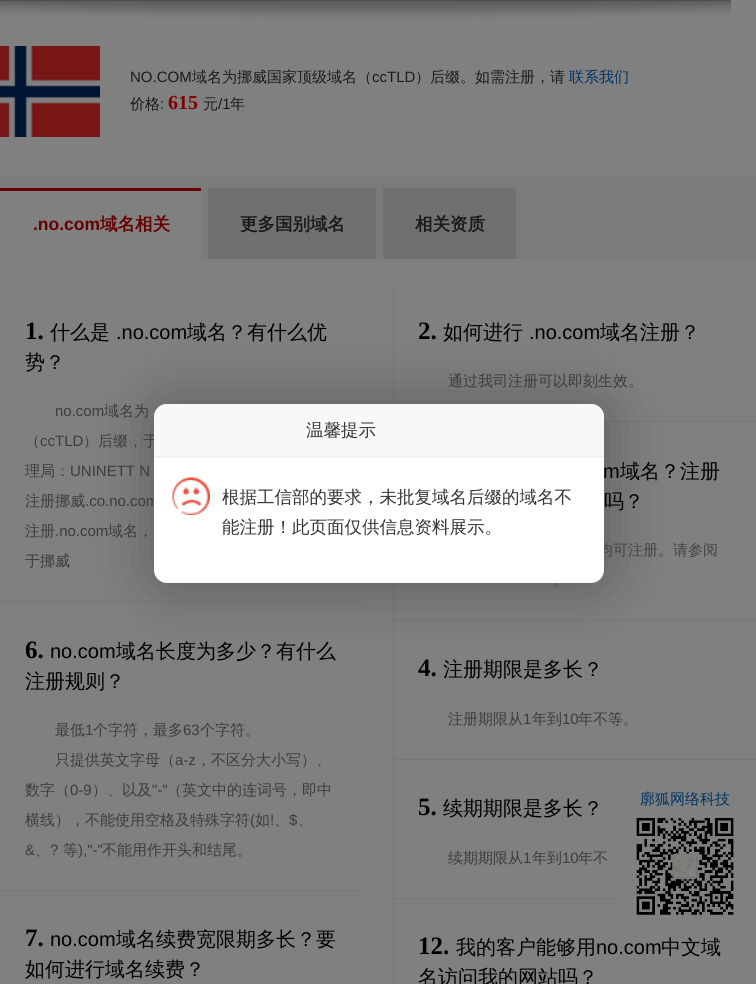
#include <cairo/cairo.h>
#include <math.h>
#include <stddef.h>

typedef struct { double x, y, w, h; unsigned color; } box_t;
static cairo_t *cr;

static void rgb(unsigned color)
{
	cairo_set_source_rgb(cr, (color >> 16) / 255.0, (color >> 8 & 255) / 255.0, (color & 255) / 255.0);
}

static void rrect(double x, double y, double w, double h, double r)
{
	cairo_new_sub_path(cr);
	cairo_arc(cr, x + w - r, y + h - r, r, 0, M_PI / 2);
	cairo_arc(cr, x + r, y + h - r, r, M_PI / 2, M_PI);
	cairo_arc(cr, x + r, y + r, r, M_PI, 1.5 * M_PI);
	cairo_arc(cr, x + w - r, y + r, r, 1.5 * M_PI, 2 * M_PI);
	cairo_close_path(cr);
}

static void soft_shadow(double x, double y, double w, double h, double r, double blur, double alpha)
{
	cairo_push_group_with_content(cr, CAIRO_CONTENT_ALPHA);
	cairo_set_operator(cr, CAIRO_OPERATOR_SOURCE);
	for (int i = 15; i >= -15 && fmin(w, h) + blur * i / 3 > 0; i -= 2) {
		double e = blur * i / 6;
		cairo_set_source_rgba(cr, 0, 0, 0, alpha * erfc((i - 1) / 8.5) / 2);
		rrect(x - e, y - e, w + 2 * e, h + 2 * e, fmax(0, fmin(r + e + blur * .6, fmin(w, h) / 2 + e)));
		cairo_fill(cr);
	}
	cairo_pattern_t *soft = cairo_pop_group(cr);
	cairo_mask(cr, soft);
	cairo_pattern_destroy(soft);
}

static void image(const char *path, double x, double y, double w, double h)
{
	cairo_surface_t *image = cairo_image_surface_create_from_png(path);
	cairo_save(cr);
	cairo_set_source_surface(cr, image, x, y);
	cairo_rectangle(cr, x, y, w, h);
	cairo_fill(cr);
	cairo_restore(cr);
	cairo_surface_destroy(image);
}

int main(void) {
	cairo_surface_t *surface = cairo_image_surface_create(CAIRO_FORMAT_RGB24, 756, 984);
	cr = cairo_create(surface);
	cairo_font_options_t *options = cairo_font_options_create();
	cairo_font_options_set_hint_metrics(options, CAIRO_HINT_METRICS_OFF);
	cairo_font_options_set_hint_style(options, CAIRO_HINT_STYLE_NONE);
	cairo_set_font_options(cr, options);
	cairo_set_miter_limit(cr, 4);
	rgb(0x7a7b7b);
	cairo_paint(cr);
	rgb(0x808080);
	cairo_rectangle(cr, 0, 0, 756, 175);
	cairo_fill(cr);
	image("img/1.png", 0, 0, 731, 18);
	image("img/2.png", 0, 46, 100, 91);
	{
		static const box_t items[] = {
			{0, 191, 201, 68, 0x808080},
			{0, 188, 201, 3, 0x660000},
			{208, 188, 168, 71, 0x707070},
			{383, 188, 133, 71, 0x707070},
			{0, 259, 756, 725, 0x808080},
			{0, 601, 363, 1, 0x777777},
			{0, 890, 363, 1, 0x777777},
			{393, 284, 1, 700, 0x777777},
			{604, 421, 152, 1, 0x777777},
			{394, 620, 362, 1, 0x777777},
			{394, 759, 362, 1, 0x777777},
			{394, 898, 362, 1, 0x777777},
			{616, 898, 138, 1, 0x7f7f7f},
		};
		for (size_t i = 0; i < sizeof items / sizeof *items; i++) {
			rgb(items[i].color);
			cairo_rectangle(cr, items[i].x, items[i].y, items[i].w, items[i].h);
			cairo_fill(cr);
		}
	}
	image("img/3.png", 636, 818, 98, 97);
	rgb(0x000000);
	soft_shadow(155, 405, 450, 179, 13, 31, 0.3);
	cairo_select_font_face(cr, "Liberation Sans", CAIRO_FONT_SLANT_NORMAL, CAIRO_FONT_WEIGHT_NORMAL);
	cairo_set_font_size(cr, 15);
	rgb(0x1a1a1a);
	cairo_move_to(cr, 130, 82);
	cairo_show_text(cr, "NO.COM");
	cairo_select_font_face(cr, "WenQuanYi Zen Hei Medium", CAIRO_FONT_SLANT_NORMAL, CAIRO_FONT_WEIGHT_NORMAL);
	cairo_move_to(cr, 192, 82);
	cairo_show_text(cr, "域名为挪威国家顶级域名（");
	cairo_select_font_face(cr, "Liberation Sans", CAIRO_FONT_SLANT_NORMAL, CAIRO_FONT_WEIGHT_NORMAL);
	cairo_move_to(cr, 372, 82);
	cairo_show_text(cr, "ccTLD");
	cairo_select_font_face(cr, "WenQuanYi Zen Hei Medium", CAIRO_FONT_SLANT_NORMAL, CAIRO_FONT_WEIGHT_NORMAL);
	cairo_move_to(cr, 415, 82);
	cairo_show_text(cr, "）后缀。如需注册，请");
	rgb(0x003366);
	cairo_move_to(cr, 569, 82);
	cairo_show_text(cr, "联系我们");
	rgb(0x1a1a1a);
	cairo_move_to(cr, 130, 109);
	cairo_show_text(cr, "价格");
	cairo_select_font_face(cr, "Liberation Sans", CAIRO_FONT_SLANT_NORMAL, CAIRO_FONT_WEIGHT_NORMAL);
	cairo_move_to(cr, 160, 109);
	cairo_show_text(cr, ":");
	cairo_select_font_face(cr, "Liberation Serif", CAIRO_FONT_SLANT_NORMAL, CAIRO_FONT_WEIGHT_BOLD);
	cairo_set_font_size(cr, 20);
	rgb(0x800000);
	cairo_move_to(cr, 168, 109);
	cairo_show_text(cr, "615");
	cairo_select_font_face(cr, "WenQuanYi Zen Hei Medium", CAIRO_FONT_SLANT_NORMAL, CAIRO_FONT_WEIGHT_NORMAL);
	cairo_set_font_size(cr, 15);
	rgb(0x1a1a1a);
	cairo_move_to(cr, 203, 109);
	cairo_show_text(cr, "元");
	cairo_select_font_face(cr, "Liberation Sans", CAIRO_FONT_SLANT_NORMAL, CAIRO_FONT_WEIGHT_NORMAL);
	cairo_move_to(cr, 218, 109);
	cairo_show_text(cr, "/1");
	cairo_select_font_face(cr, "WenQuanYi Zen Hei Medium", CAIRO_FONT_SLANT_NORMAL, CAIRO_FONT_WEIGHT_NORMAL);
	cairo_move_to(cr, 230, 109);
	cairo_show_text(cr, "年");
	cairo_select_font_face(cr, "Liberation Sans", CAIRO_FONT_SLANT_NORMAL, CAIRO_FONT_WEIGHT_BOLD);
	cairo_set_font_size(cr, 17.5);
	rgb(0x660000);
	cairo_move_to(cr, 33, 230);
	cairo_show_text(cr, ".no.com");
	cairo_select_font_face(cr, "WenQuanYi Zen Hei", CAIRO_FONT_SLANT_NORMAL, CAIRO_FONT_WEIGHT_BOLD);
	cairo_move_to(cr, 100, 230);
	cairo_show_text(cr, "域名相关");
	rgb(0x1a1a1a);
	cairo_move_to(cr, 240, 230);
	cairo_show_text(cr, "更多国别域名");
	cairo_move_to(cr, 415, 230);
	cairo_show_text(cr, "相关资质");
	cairo_select_font_face(cr, "Liberation Serif", CAIRO_FONT_SLANT_NORMAL, CAIRO_FONT_WEIGHT_BOLD);
	cairo_set_font_size(cr, 25);
	rgb(0x000000);
	cairo_move_to(cr, 25, 339);
	cairo_show_text(cr, "1.");
	cairo_select_font_face(cr, "WenQuanYi Zen Hei Medium", CAIRO_FONT_SLANT_NORMAL, CAIRO_FONT_WEIGHT_NORMAL);
	cairo_set_font_size(cr, 20);
	cairo_move_to(cr, 50, 339);
	cairo_show_text(cr, "什么是");
	cairo_select_font_face(cr, "Liberation Sans", CAIRO_FONT_SLANT_NORMAL, CAIRO_FONT_WEIGHT_NORMAL);
	cairo_move_to(cr, 116, 339);
	cairo_show_text(cr, ".no.com");
	cairo_select_font_face(cr, "WenQuanYi Zen Hei Medium", CAIRO_FONT_SLANT_NORMAL, CAIRO_FONT_WEIGHT_NORMAL);
	cairo_move_to(cr, 187, 339);
	cairo_show_text(cr, "域名？有什么优");
	cairo_move_to(cr, 25, 369);
	cairo_show_text(cr, "势？");
	cairo_select_font_face(cr, "Liberation Sans", CAIRO_FONT_SLANT_NORMAL, CAIRO_FONT_WEIGHT_NORMAL);
	cairo_set_font_size(cr, 15);
	rgb(0x3c3c3c);
	cairo_move_to(cr, 55, 416);
	cairo_show_text(cr, "no.com");
	cairo_select_font_face(cr, "WenQuanYi Zen Hei Medium", CAIRO_FONT_SLANT_NORMAL, CAIRO_FONT_WEIGHT_NORMAL);
	cairo_move_to(cr, 104, 416);
	cairo_show_text(cr, "域名为");
	cairo_move_to(cr, 25, 446);
	cairo_show_text(cr, "（");
	cairo_select_font_face(cr, "Liberation Sans", CAIRO_FONT_SLANT_NORMAL, CAIRO_FONT_WEIGHT_NORMAL);
	cairo_move_to(cr, 40, 446);
	cairo_show_text(cr, "ccTLD");
	cairo_select_font_face(cr, "WenQuanYi Zen Hei Medium", CAIRO_FONT_SLANT_NORMAL, CAIRO_FONT_WEIGHT_NORMAL);
	cairo_move_to(cr, 83, 446);
	cairo_show_text(cr, "）后缀，于");
	cairo_move_to(cr, 25, 476);
	cairo_show_text(cr, "理局：");
	cairo_select_font_face(cr, "Liberation Sans", CAIRO_FONT_SLANT_NORMAL, CAIRO_FONT_WEIGHT_NORMAL);
	cairo_move_to(cr, 70, 476);
	cairo_show_text(cr, "UNINETT N");
	cairo_select_font_face(cr, "WenQuanYi Zen Hei Medium", CAIRO_FONT_SLANT_NORMAL, CAIRO_FONT_WEIGHT_NORMAL);
	cairo_move_to(cr, 25, 506);
	cairo_show_text(cr, "注册挪威");
	cairo_select_font_face(cr, "Liberation Sans", CAIRO_FONT_SLANT_NORMAL, CAIRO_FONT_WEIGHT_NORMAL);
	cairo_move_to(cr, 85, 506);
	cairo_show_text(cr, ".co.no.com");
	cairo_select_font_face(cr, "WenQuanYi Zen Hei Medium", CAIRO_FONT_SLANT_NORMAL, CAIRO_FONT_WEIGHT_NORMAL);
	cairo_move_to(cr, 25, 536);
	cairo_show_text(cr, "注册");
	cairo_select_font_face(cr, "Liberation Sans", CAIRO_FONT_SLANT_NORMAL, CAIRO_FONT_WEIGHT_NORMAL);
	cairo_move_to(cr, 55, 536);
	cairo_show_text(cr, ".no.com");
	cairo_select_font_face(cr, "WenQuanYi Zen Hei Medium", CAIRO_FONT_SLANT_NORMAL, CAIRO_FONT_WEIGHT_NORMAL);
	cairo_move_to(cr, 108, 536);
	cairo_show_text(cr, "域名，");
	cairo_move_to(cr, 25, 566);
	cairo_show_text(cr, "于挪威");
	cairo_select_font_face(cr, "Liberation Serif", CAIRO_FONT_SLANT_NORMAL, CAIRO_FONT_WEIGHT_BOLD);
	cairo_set_font_size(cr, 25);
	rgb(0x000000);
	cairo_move_to(cr, 25, 658);
	cairo_show_text(cr, "6.");
	cairo_select_font_face(cr, "Liberation Sans", CAIRO_FONT_SLANT_NORMAL, CAIRO_FONT_WEIGHT_NORMAL);
	cairo_set_font_size(cr, 20);
	cairo_move_to(cr, 50, 658);
	cairo_show_text(cr, "no.com");
	cairo_select_font_face(cr, "WenQuanYi Zen Hei Medium", CAIRO_FONT_SLANT_NORMAL, CAIRO_FONT_WEIGHT_NORMAL);
	cairo_move_to(cr, 116, 658);
	cairo_show_text(cr, "域名长度为多少？有什么");
	cairo_move_to(cr, 25, 688);
	cairo_show_text(cr, "注册规则？");
	cairo_set_font_size(cr, 15);
	rgb(0x3c3c3c);
	cairo_move_to(cr, 55, 735);
	cairo_show_text(cr, "最低");
	cairo_select_font_face(cr, "Liberation Sans", CAIRO_FONT_SLANT_NORMAL, CAIRO_FONT_WEIGHT_NORMAL);
	cairo_move_to(cr, 85, 735);
	cairo_show_text(cr, "1");
	cairo_select_font_face(cr, "WenQuanYi Zen Hei Medium", CAIRO_FONT_SLANT_NORMAL, CAIRO_FONT_WEIGHT_NORMAL);
	cairo_move_to(cr, 93, 735);
	cairo_show_text(cr, "个字符，最多");
	cairo_select_font_face(cr, "Liberation Sans", CAIRO_FONT_SLANT_NORMAL, CAIRO_FONT_WEIGHT_NORMAL);
	cairo_move_to(cr, 183, 735);
	cairo_show_text(cr, "63");
	cairo_select_font_face(cr, "WenQuanYi Zen Hei Medium", CAIRO_FONT_SLANT_NORMAL, CAIRO_FONT_WEIGHT_NORMAL);
	cairo_move_to(cr, 200, 735);
	cairo_show_text(cr, "个字符。");
	cairo_move_to(cr, 55, 765);
	cairo_show_text(cr, "只提供英文字母（");
	cairo_select_font_face(cr, "Liberation Sans", CAIRO_FONT_SLANT_NORMAL, CAIRO_FONT_WEIGHT_NORMAL);
	cairo_move_to(cr, 175, 765);
	cairo_show_text(cr, "a-z");
	cairo_select_font_face(cr, "WenQuanYi Zen Hei Medium", CAIRO_FONT_SLANT_NORMAL, CAIRO_FONT_WEIGHT_NORMAL);
	cairo_move_to(cr, 196, 765);
	cairo_show_text(cr, "，不区分大小写）、");
	cairo_move_to(cr, 25, 795);
	cairo_show_text(cr, "数字（");
	cairo_select_font_face(cr, "Liberation Sans", CAIRO_FONT_SLANT_NORMAL, CAIRO_FONT_WEIGHT_NORMAL);
	cairo_move_to(cr, 70, 795);
	cairo_show_text(cr, "0-9");
	cairo_select_font_face(cr, "WenQuanYi Zen Hei Medium", CAIRO_FONT_SLANT_NORMAL, CAIRO_FONT_WEIGHT_NORMAL);
	cairo_move_to(cr, 92, 795);
	cairo_show_text(cr, "）、以及");
	cairo_select_font_face(cr, "Liberation Sans", CAIRO_FONT_SLANT_NORMAL, CAIRO_FONT_WEIGHT_NORMAL);
	cairo_move_to(cr, 152, 795);
	cairo_show_text(cr, "\"-\"");
	cairo_select_font_face(cr, "WenQuanYi Zen Hei Medium", CAIRO_FONT_SLANT_NORMAL, CAIRO_FONT_WEIGHT_NORMAL);
	cairo_move_to(cr, 167, 795);
	cairo_show_text(cr, "（英文中的连词号，即中");
	cairo_move_to(cr, 25, 825);
	cairo_show_text(cr, "横线），不能使用空格及特殊字符");
	cairo_select_font_face(cr, "Liberation Sans", CAIRO_FONT_SLANT_NORMAL, CAIRO_FONT_WEIGHT_NORMAL);
	cairo_move_to(cr, 250, 825);
	cairo_show_text(cr, "(");
	cairo_select_font_face(cr, "WenQuanYi Zen Hei Medium", CAIRO_FONT_SLANT_NORMAL, CAIRO_FONT_WEIGHT_NORMAL);
	cairo_move_to(cr, 255, 825);
	cairo_show_text(cr, "如");
	cairo_select_font_face(cr, "Liberation Sans", CAIRO_FONT_SLANT_NORMAL, CAIRO_FONT_WEIGHT_NORMAL);
	cairo_move_to(cr, 270, 825);
	cairo_show_text(cr, "!");
	cairo_select_font_face(cr, "WenQuanYi Zen Hei Medium", CAIRO_FONT_SLANT_NORMAL, CAIRO_FONT_WEIGHT_NORMAL);
	cairo_move_to(cr, 274, 825);
	cairo_show_text(cr, "、");
	cairo_select_font_face(cr, "Liberation Sans", CAIRO_FONT_SLANT_NORMAL, CAIRO_FONT_WEIGHT_NORMAL);
	cairo_move_to(cr, 289, 825);
	cairo_show_text(cr, "$");
	cairo_select_font_face(cr, "WenQuanYi Zen Hei Medium", CAIRO_FONT_SLANT_NORMAL, CAIRO_FONT_WEIGHT_NORMAL);
	cairo_move_to(cr, 298, 825);
	cairo_show_text(cr, "、");
	cairo_select_font_face(cr, "Liberation Sans", CAIRO_FONT_SLANT_NORMAL, CAIRO_FONT_WEIGHT_NORMAL);
	cairo_move_to(cr, 25, 855);
	cairo_show_text(cr, "&");
	cairo_select_font_face(cr, "WenQuanYi Zen Hei Medium", CAIRO_FONT_SLANT_NORMAL, CAIRO_FONT_WEIGHT_NORMAL);
	cairo_move_to(cr, 35, 855);
	cairo_show_text(cr, "、");
	cairo_select_font_face(cr, "Liberation Sans", CAIRO_FONT_SLANT_NORMAL, CAIRO_FONT_WEIGHT_NORMAL);
	cairo_move_to(cr, 50, 855);
	cairo_show_text(cr, "?");
	cairo_select_font_face(cr, "WenQuanYi Zen Hei Medium", CAIRO_FONT_SLANT_NORMAL, CAIRO_FONT_WEIGHT_NORMAL);
	cairo_move_to(cr, 63, 855);
	cairo_show_text(cr, "等");
	cairo_select_font_face(cr, "Liberation Sans", CAIRO_FONT_SLANT_NORMAL, CAIRO_FONT_WEIGHT_NORMAL);
	cairo_move_to(cr, 78, 855);
	cairo_show_text(cr, "),\"-\"");
	cairo_select_font_face(cr, "WenQuanYi Zen Hei Medium", CAIRO_FONT_SLANT_NORMAL, CAIRO_FONT_WEIGHT_NORMAL);
	cairo_move_to(cr, 102, 855);
	cairo_show_text(cr, "不能用作开头和结尾。");
	cairo_select_font_face(cr, "Liberation Serif", CAIRO_FONT_SLANT_NORMAL, CAIRO_FONT_WEIGHT_BOLD);
	cairo_set_font_size(cr, 25);
	rgb(0x000000);
	cairo_move_to(cr, 25, 946);
	cairo_show_text(cr, "7.");
	cairo_select_font_face(cr, "Liberation Sans", CAIRO_FONT_SLANT_NORMAL, CAIRO_FONT_WEIGHT_NORMAL);
	cairo_set_font_size(cr, 20);
	cairo_move_to(cr, 50, 946);
	cairo_show_text(cr, "no.com");
	cairo_select_font_face(cr, "WenQuanYi Zen Hei Medium", CAIRO_FONT_SLANT_NORMAL, CAIRO_FONT_WEIGHT_NORMAL);
	cairo_move_to(cr, 116, 946);
	cairo_show_text(cr, "域名续费宽限期多长？要");
	cairo_move_to(cr, 25, 976);
	cairo_show_text(cr, "如何进行域名续费？");
	cairo_select_font_face(cr, "Liberation Serif", CAIRO_FONT_SLANT_NORMAL, CAIRO_FONT_WEIGHT_BOLD);
	cairo_set_font_size(cr, 25);
	cairo_move_to(cr, 418, 339);
	cairo_show_text(cr, "2.");
	cairo_select_font_face(cr, "WenQuanYi Zen Hei Medium", CAIRO_FONT_SLANT_NORMAL, CAIRO_FONT_WEIGHT_NORMAL);
	cairo_set_font_size(cr, 20);
	cairo_move_to(cr, 443, 339);
	cairo_show_text(cr, "如何进行");
	cairo_select_font_face(cr, "Liberation Sans", CAIRO_FONT_SLANT_NORMAL, CAIRO_FONT_WEIGHT_NORMAL);
	cairo_move_to(cr, 529, 339);
	cairo_show_text(cr, ".no.com");
	cairo_select_font_face(cr, "WenQuanYi Zen Hei Medium", CAIRO_FONT_SLANT_NORMAL, CAIRO_FONT_WEIGHT_NORMAL);
	cairo_move_to(cr, 600, 339);
	cairo_show_text(cr, "域名注册？");
	cairo_set_font_size(cr, 15);
	rgb(0x3c3c3c);
	cairo_move_to(cr, 448, 386);
	cairo_show_text(cr, "通过我司注册可以即刻生效。");
	cairo_select_font_face(cr, "Liberation Sans", CAIRO_FONT_SLANT_NORMAL, CAIRO_FONT_WEIGHT_NORMAL);
	cairo_set_font_size(cr, 20);
	rgb(0x000000);
	cairo_move_to(cr, 603, 478);
	cairo_show_text(cr, "m");
	cairo_select_font_face(cr, "WenQuanYi Zen Hei Medium", CAIRO_FONT_SLANT_NORMAL, CAIRO_FONT_WEIGHT_NORMAL);
	cairo_move_to(cr, 620, 478);
	cairo_show_text(cr, "域名？注册");
	cairo_move_to(cr, 604, 508);
	cairo_show_text(cr, "吗？");
	cairo_set_font_size(cr, 15);
	rgb(0x444444);
	cairo_move_to(cr, 598, 555);
	cairo_show_text(cr, "均可注册。请参阅");
	cairo_move_to(cr, 553, 585);
	cairo_show_text(cr, "。");
	cairo_select_font_face(cr, "Liberation Serif", CAIRO_FONT_SLANT_NORMAL, CAIRO_FONT_WEIGHT_BOLD);
	cairo_set_font_size(cr, 25);
	rgb(0x000000);
	cairo_move_to(cr, 418, 676);
	cairo_show_text(cr, "4.");
	cairo_select_font_face(cr, "WenQuanYi Zen Hei Medium", CAIRO_FONT_SLANT_NORMAL, CAIRO_FONT_WEIGHT_NORMAL);
	cairo_set_font_size(cr, 20);
	cairo_move_to(cr, 443, 676);
	cairo_show_text(cr, "注册期限是多长？");
	cairo_set_font_size(cr, 15);
	rgb(0x3c3c3c);
	cairo_move_to(cr, 448, 724);
	cairo_show_text(cr, "注册期限从");
	cairo_select_font_face(cr, "Liberation Sans", CAIRO_FONT_SLANT_NORMAL, CAIRO_FONT_WEIGHT_NORMAL);
	cairo_move_to(cr, 523, 724);
	cairo_show_text(cr, "1");
	cairo_select_font_face(cr, "WenQuanYi Zen Hei Medium", CAIRO_FONT_SLANT_NORMAL, CAIRO_FONT_WEIGHT_NORMAL);
	cairo_move_to(cr, 532, 724);
	cairo_show_text(cr, "年到");
	cairo_select_font_face(cr, "Liberation Sans", CAIRO_FONT_SLANT_NORMAL, CAIRO_FONT_WEIGHT_NORMAL);
	cairo_move_to(cr, 562, 724);
	cairo_show_text(cr, "10");
	cairo_select_font_face(cr, "WenQuanYi Zen Hei Medium", CAIRO_FONT_SLANT_NORMAL, CAIRO_FONT_WEIGHT_NORMAL);
	cairo_move_to(cr, 578, 724);
	cairo_show_text(cr, "年不等。");
	cairo_select_font_face(cr, "Liberation Serif", CAIRO_FONT_SLANT_NORMAL, CAIRO_FONT_WEIGHT_BOLD);
	cairo_set_font_size(cr, 25);
	rgb(0x000000);
	cairo_move_to(cr, 418, 815);
	cairo_show_text(cr, "5.");
	cairo_select_font_face(cr, "WenQuanYi Zen Hei Medium", CAIRO_FONT_SLANT_NORMAL, CAIRO_FONT_WEIGHT_NORMAL);
	cairo_set_font_size(cr, 20);
	cairo_move_to(cr, 443, 815);
	cairo_show_text(cr, "续期期限是多长？");
	cairo_set_font_size(cr, 15);
	rgb(0x3c3c3c);
	cairo_move_to(cr, 448, 863);
	cairo_show_text(cr, "续期期限从");
	cairo_select_font_face(cr, "Liberation Sans", CAIRO_FONT_SLANT_NORMAL, CAIRO_FONT_WEIGHT_NORMAL);
	cairo_move_to(cr, 523, 863);
	cairo_show_text(cr, "1");
	cairo_select_font_face(cr, "WenQuanYi Zen Hei Medium", CAIRO_FONT_SLANT_NORMAL, CAIRO_FONT_WEIGHT_NORMAL);
	cairo_move_to(cr, 532, 863);
	cairo_show_text(cr, "年到");
	cairo_select_font_face(cr, "Liberation Sans", CAIRO_FONT_SLANT_NORMAL, CAIRO_FONT_WEIGHT_NORMAL);
	cairo_move_to(cr, 562, 863);
	cairo_show_text(cr, "10");
	cairo_select_font_face(cr, "WenQuanYi Zen Hei Medium", CAIRO_FONT_SLANT_NORMAL, CAIRO_FONT_WEIGHT_NORMAL);
	cairo_move_to(cr, 578, 863);
	cairo_show_text(cr, "年不");
	cairo_select_font_face(cr, "Liberation Serif", CAIRO_FONT_SLANT_NORMAL, CAIRO_FONT_WEIGHT_BOLD);
	cairo_set_font_size(cr, 25);
	rgb(0x000000);
	cairo_move_to(cr, 418, 954);
	cairo_show_text(cr, "12.");
	cairo_select_font_face(cr, "WenQuanYi Zen Hei Medium", CAIRO_FONT_SLANT_NORMAL, CAIRO_FONT_WEIGHT_NORMAL);
	cairo_set_font_size(cr, 20);
	cairo_move_to(cr, 456, 954);
	cairo_show_text(cr, "我的客户能够用");
	cairo_select_font_face(cr, "Liberation Sans", CAIRO_FONT_SLANT_NORMAL, CAIRO_FONT_WEIGHT_NORMAL);
	cairo_move_to(cr, 596, 954);
	cairo_show_text(cr, "no.com");
	cairo_select_font_face(cr, "WenQuanYi Zen Hei Medium", CAIRO_FONT_SLANT_NORMAL, CAIRO_FONT_WEIGHT_NORMAL);
	cairo_move_to(cr, 661, 954);
	cairo_show_text(cr, "中文域");
	cairo_move_to(cr, 418, 984);
	cairo_show_text(cr, "名访问我的网站吗？");
	cairo_set_font_size(cr, 15);
	rgb(0x003366);
	cairo_move_to(cr, 640, 804);
	cairo_show_text(cr, "廓狐网络科技");
	rgb(0xffffff);
	rrect(154, 404, 450, 179, 13);
	cairo_fill(cr);
	rgb(0xf8f8f8);
	cairo_new_path(cr);
	cairo_move_to(cr, 167, 404);
	cairo_line_to(cr, 591, 404);
	cairo_curve_to(cr, 598, 404, 604, 410, 604, 417);
	cairo_line_to(cr, 604, 458);
	cairo_line_to(cr, 154, 458);
	cairo_line_to(cr, 154, 417);
	cairo_curve_to(cr, 154, 410, 160, 404, 167, 404);
	cairo_close_path(cr);
	cairo_fill(cr);
	rgb(0xeeeeee);
	cairo_rectangle(cr, 154, 456, 450, 1);
	cairo_fill(cr);
	cairo_set_font_size(cr, 17.5);
	rgb(0x333333);
	cairo_move_to(cr, 306, 436);
	cairo_show_text(cr, "温馨提示");
	image("img/4.png", 172, 477, 38, 38);
	cairo_move_to(cr, 222, 503);
	cairo_show_text(cr, "根据工信部的要求，未批复域名后缀的域名不");
	cairo_move_to(cr, 222, 533);
	cairo_show_text(cr, "能注册！此页面仅供信息资料展示。");
	cairo_surface_write_to_png(surface, "page.png");
	cairo_font_options_destroy(options);
	cairo_destroy(cr);
	cairo_surface_destroy(surface);
	return 0;
}
